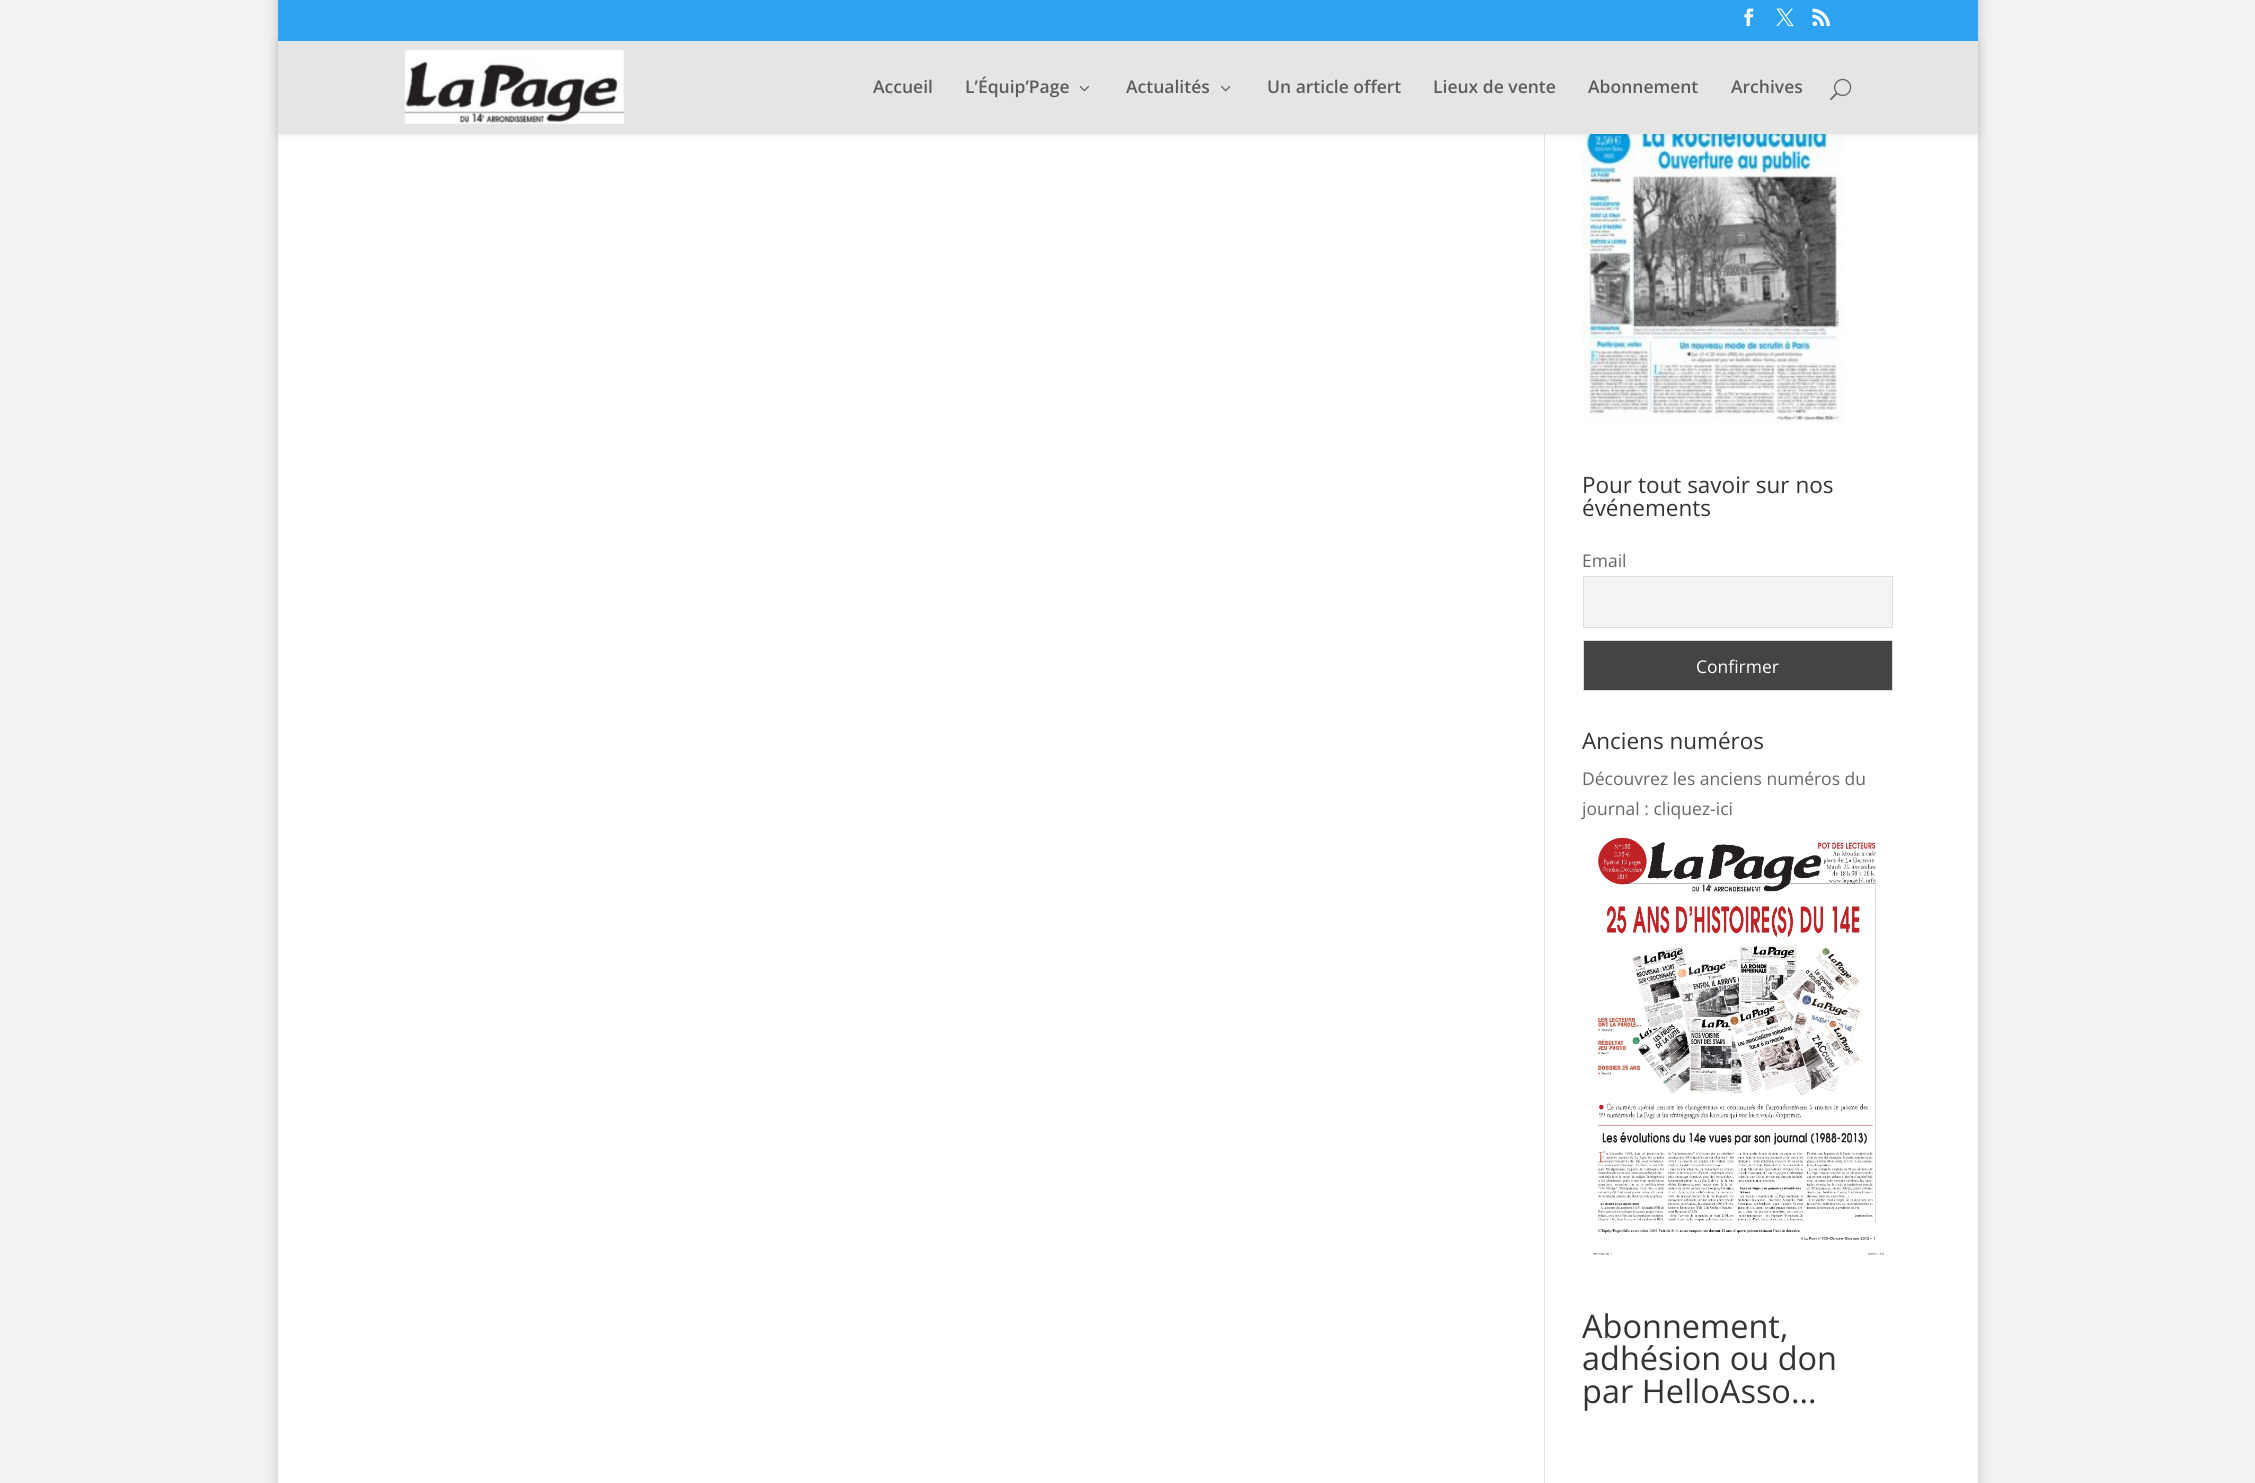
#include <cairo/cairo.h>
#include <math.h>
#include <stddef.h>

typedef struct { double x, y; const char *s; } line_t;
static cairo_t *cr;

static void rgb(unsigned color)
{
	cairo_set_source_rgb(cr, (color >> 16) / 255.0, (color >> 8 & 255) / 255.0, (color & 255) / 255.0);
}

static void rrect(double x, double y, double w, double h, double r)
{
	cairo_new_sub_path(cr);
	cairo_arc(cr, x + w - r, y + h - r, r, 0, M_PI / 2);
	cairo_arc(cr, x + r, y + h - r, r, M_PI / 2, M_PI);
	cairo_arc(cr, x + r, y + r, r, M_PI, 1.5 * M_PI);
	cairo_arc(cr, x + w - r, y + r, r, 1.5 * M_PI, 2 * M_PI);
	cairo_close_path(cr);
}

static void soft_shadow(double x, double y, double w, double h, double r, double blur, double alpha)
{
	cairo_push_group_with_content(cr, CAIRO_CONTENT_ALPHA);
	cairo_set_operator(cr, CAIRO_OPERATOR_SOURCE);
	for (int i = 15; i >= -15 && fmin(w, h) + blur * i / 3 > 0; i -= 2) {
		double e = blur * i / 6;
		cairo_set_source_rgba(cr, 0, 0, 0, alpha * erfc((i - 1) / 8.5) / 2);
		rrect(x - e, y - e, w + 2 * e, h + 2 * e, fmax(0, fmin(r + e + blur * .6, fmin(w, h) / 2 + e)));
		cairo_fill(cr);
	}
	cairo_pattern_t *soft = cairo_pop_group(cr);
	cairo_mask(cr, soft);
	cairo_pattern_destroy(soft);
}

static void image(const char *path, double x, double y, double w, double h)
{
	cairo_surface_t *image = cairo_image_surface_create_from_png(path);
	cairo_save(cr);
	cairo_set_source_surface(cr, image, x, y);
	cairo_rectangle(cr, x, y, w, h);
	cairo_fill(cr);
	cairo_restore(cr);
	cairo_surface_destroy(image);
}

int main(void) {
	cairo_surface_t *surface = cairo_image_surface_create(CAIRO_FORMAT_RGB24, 2255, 1483);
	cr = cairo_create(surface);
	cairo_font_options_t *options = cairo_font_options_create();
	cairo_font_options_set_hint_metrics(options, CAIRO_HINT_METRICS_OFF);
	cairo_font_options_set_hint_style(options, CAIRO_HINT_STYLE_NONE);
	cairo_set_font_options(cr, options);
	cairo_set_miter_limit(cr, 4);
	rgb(0xf2f2f2);
	cairo_paint(cr);
	rgb(0x000000);
	soft_shadow(278, -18, 1700, 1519, 0, 6, 0.2);
	rgb(0xffffff);
	cairo_rectangle(cr, 278, 134, 1700, 1349);
	cairo_fill(cr);
	rgb(0xe2e2e2);
	cairo_rectangle(cr, 1544, 134, 1, 1349);
	cairo_fill(cr);
	image("img/8.png", 1582, 134, 261, 288);
	rgb(0x000000);
	soft_shadow(278, 41, 1700, 93, 0, 4.5, 0.1);
	rgb(0x2ea3f2);
	cairo_rectangle(cr, 278, 0, 1700, 41);
	cairo_fill(cr);
	image("img/1.png", 1744, 8, 10, 19);
	image("img/2.png", 1776, 8, 18, 19);
	image("img/3.png", 1812, 8, 18, 19);
	rgb(0xe5e5e3);
	cairo_rectangle(cr, 278, 41, 1700, 93);
	cairo_fill(cr);
	image("img/4.png", 404, 49, 220, 75);
	image("img/5.png", 1079, 86, 10, 6);
	image("img/6.png", 1221, 86, 10, 6);
	image("img/7.png", 1830, 78, 22, 23);
	rgb(0xf4f4f4);
	cairo_rectangle(cr, 1583.5, 576.5, 309, 51);
	cairo_fill_preserve(cr);
	rgb(0xdddddd);
	cairo_set_line_width(cr, 1);
	cairo_stroke(cr);
	rgb(0x444444);
	cairo_rectangle(cr, 1583.5, 640.5, 309, 50);
	cairo_fill_preserve(cr);
	rgb(0xdddddd);
	cairo_stroke(cr);
	image("img/9.png", 1593, 837, 291, 418);
	cairo_select_font_face(cr, "Open Sans SemiBold", CAIRO_FONT_SLANT_NORMAL, CAIRO_FONT_WEIGHT_NORMAL);
	cairo_set_font_size(cr, 17.5);
	rgb(0x5c5c5b);
	{
		static const line_t items[] = {
			{873, 93, "Accueil"},
			{965, 93, "L’Équip’Page"},
			{1126, 93, "Actualités"},
			{1267, 93, "Un article offert"},
			{1433, 93, "Lieux de vente"},
			{1588, 93, "Abonnement"},
			{1731, 93, "Archives"},
		};
		for (size_t i = 0; i < sizeof items / sizeof *items; i++) {
			cairo_move_to(cr, items[i].x, items[i].y);
			cairo_show_text(cr, items[i].s);
		}
	}
	cairo_select_font_face(cr, "Open Sans", CAIRO_FONT_SLANT_NORMAL, CAIRO_FONT_WEIGHT_NORMAL);
	cairo_set_font_size(cr, 22.5);
	rgb(0x333333);
	cairo_move_to(cr, 1582, 493);
	cairo_show_text(cr, "Pour tout savoir sur nos");
	cairo_move_to(cr, 1582, 516);
	cairo_show_text(cr, "événements");
	cairo_set_font_size(cr, 17.5);
	rgb(0x666666);
	cairo_move_to(cr, 1582, 567);
	cairo_show_text(cr, "Email");
	rgb(0xffffff);
	cairo_move_to(cr, 1696, 673);
	cairo_show_text(cr, "Confirmer");
	cairo_set_font_size(cr, 22.5);
	rgb(0x333333);
	cairo_move_to(cr, 1582, 749);
	cairo_show_text(cr, "Anciens numéros");
	cairo_set_font_size(cr, 17.5);
	rgb(0x666666);
	cairo_move_to(cr, 1582, 785);
	cairo_show_text(cr, "Découvrez les anciens numéros du");
	cairo_move_to(cr, 1582, 815);
	cairo_show_text(cr, "journal : cliquez-ici");
	cairo_set_font_size(cr, 32.5);
	rgb(0x333333);
	{
		static const line_t items[] = {
			{1582, 1338, "Abonnement,"},
			{1582, 1370, "adhésion ou don"},
			{1582, 1403, "par HelloAsso..."},
		};
		for (size_t i = 0; i < sizeof items / sizeof *items; i++) {
			cairo_move_to(cr, items[i].x, items[i].y);
			cairo_show_text(cr, items[i].s);
		}
	}
	cairo_surface_write_to_png(surface, "page.png");
	cairo_font_options_destroy(options);
	cairo_destroy(cr);
	cairo_surface_destroy(surface);
	return 0;
}
